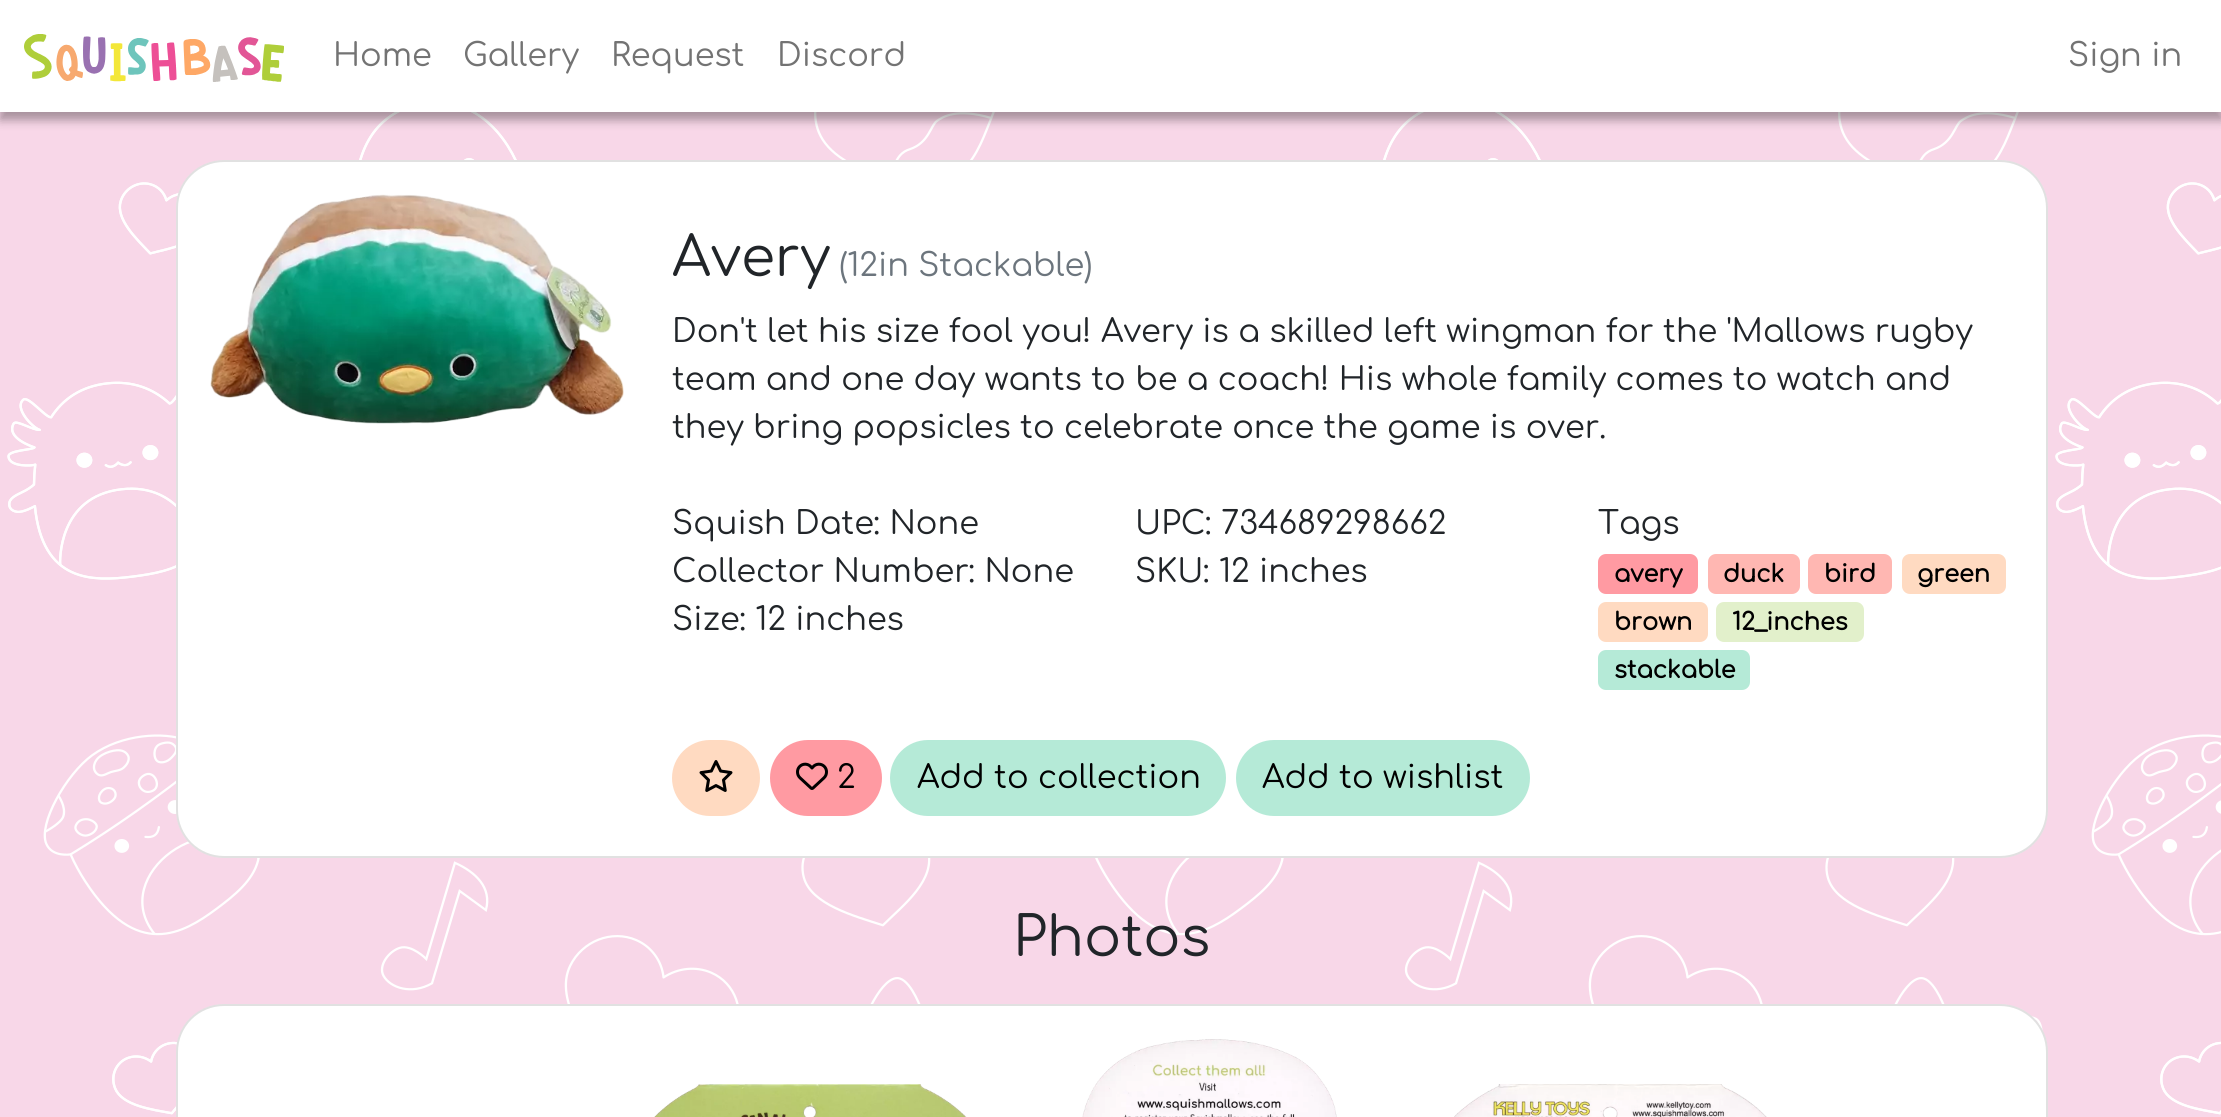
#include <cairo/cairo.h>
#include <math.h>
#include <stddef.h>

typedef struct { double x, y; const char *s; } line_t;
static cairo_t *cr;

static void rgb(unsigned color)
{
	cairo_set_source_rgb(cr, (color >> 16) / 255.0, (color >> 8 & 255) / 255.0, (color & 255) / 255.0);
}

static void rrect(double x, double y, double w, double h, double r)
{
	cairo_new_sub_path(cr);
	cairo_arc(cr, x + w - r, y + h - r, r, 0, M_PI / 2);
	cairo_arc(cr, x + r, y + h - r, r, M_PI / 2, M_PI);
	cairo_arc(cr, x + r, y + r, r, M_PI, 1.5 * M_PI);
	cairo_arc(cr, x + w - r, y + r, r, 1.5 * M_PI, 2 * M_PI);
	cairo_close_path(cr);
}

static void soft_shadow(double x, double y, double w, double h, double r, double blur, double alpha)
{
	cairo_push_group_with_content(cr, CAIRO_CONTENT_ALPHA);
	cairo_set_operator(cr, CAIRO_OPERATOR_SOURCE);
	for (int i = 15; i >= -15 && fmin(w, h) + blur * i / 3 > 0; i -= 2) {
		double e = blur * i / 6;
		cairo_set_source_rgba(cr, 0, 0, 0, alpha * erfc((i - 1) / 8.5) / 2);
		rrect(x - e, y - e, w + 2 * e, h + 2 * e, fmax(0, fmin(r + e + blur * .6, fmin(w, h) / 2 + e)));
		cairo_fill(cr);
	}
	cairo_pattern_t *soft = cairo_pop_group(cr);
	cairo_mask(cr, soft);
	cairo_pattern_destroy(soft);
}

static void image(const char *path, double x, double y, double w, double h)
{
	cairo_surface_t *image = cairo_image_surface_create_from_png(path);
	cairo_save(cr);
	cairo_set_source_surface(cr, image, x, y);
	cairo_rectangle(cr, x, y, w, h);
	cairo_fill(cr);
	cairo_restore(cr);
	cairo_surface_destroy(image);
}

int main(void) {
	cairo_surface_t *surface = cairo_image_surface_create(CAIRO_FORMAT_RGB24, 2221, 1117);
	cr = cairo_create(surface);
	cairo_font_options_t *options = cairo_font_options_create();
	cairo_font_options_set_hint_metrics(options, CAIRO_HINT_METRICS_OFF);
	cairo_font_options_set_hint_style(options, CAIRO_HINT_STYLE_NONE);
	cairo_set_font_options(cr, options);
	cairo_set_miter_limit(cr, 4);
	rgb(0xf8d7e8);
	cairo_paint(cr);
	image("img/1.png", 7, 112, 2214, 1003);
	rgb(0x000000);
	soft_shadow(0, 8, 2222, 112, 0, 5, 0.33);
	rgb(0xffffff);
	cairo_rectangle(cr, 0, 0, 2221, 112);
	cairo_fill(cr);
	image("img/2.png", 24, 34, 260, 48);
	rrect(176, 160, 1872, 698, 48);
	cairo_fill(cr);
	rrect(177, 161, 1870, 696, 47);
	cairo_set_source_rgba(cr, 0, 0, 0, 0.12);
	cairo_stroke(cr);
	image("img/3.png", 210, 194, 414, 230);
	rgb(0xff9aa2);
	rrect(1598, 554, 100, 40, 8);
	cairo_fill(cr);
	rgb(0xffb7b2);
	rrect(1708, 554, 92, 40, 8);
	cairo_fill(cr);
	rrect(1808, 554, 84, 40, 8);
	cairo_fill(cr);
	rgb(0xffdac1);
	rrect(1902, 554, 104, 40, 8);
	cairo_fill(cr);
	rrect(1598, 602, 110, 40, 8);
	cairo_fill(cr);
	rgb(0xe2f0cb);
	rrect(1716, 602, 148, 40, 8);
	cairo_fill(cr);
	rgb(0xb5ead7);
	rrect(1598, 650, 152, 40, 8);
	cairo_fill(cr);
	rgb(0xffdac1);
	rrect(673, 741, 86, 74, 37);
	cairo_fill_preserve(cr);
	cairo_stroke(cr);
	image("img/4.png", 699, 760, 34, 32);
	rgb(0xff9aa2);
	rrect(771, 741, 110, 74, 37);
	cairo_fill_preserve(cr);
	cairo_stroke(cr);
	image("img/5.png", 796, 762, 32, 28);
	rgb(0xb5ead7);
	rrect(891, 741, 334, 74, 37);
	cairo_fill_preserve(cr);
	cairo_stroke(cr);
	rrect(1237, 741, 292, 74, 37);
	cairo_fill_preserve(cr);
	cairo_stroke(cr);
	rgb(0xffffff);
	rrect(176, 1004, 1872, 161, 48);
	cairo_fill(cr);
	rrect(177, 1005, 1870, 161, 47);
	cairo_set_source_rgba(cr, 0, 0, 0, 0.12);
	cairo_stroke(cr);
	image("img/6.png", 654, 1084, 313, 33);
	image("img/7.png", 1082, 1039, 255, 78);
	image("img/8.png", 1454, 1084, 313, 33);
	cairo_select_font_face(cr, "Comfortaa", CAIRO_FONT_SLANT_NORMAL, CAIRO_FONT_WEIGHT_NORMAL);
	cairo_set_font_size(cr, 32);
	rgb(0x737373);
	{
		static const line_t items[] = {
			{333, 66, "Home"},
			{463, 66, "Gallery"},
			{611, 66, "Request"},
			{777, 66, "Discord"},
			{2068, 66, "Sign in"},
		};
		for (size_t i = 0; i < sizeof items / sizeof *items; i++) {
			cairo_move_to(cr, items[i].x, items[i].y);
			cairo_show_text(cr, items[i].s);
		}
	}
	cairo_set_font_size(cr, 55);
	rgb(0x212529);
	cairo_move_to(cr, 672, 276);
	cairo_show_text(cr, "Avery");
	cairo_set_font_size(cr, 32);
	rgb(0x6c757d);
	cairo_move_to(cr, 839, 276);
	cairo_show_text(cr, "(12in Stackable)");
	rgb(0x212529);
	{
		static const line_t items[] = {
			{672, 342, "Don't let his size fool you! Avery is a skilled left wingman for the 'Mallows rugby"},
			{672, 390, "team and one day wants to be a coach! His whole family comes to watch and"},
			{672, 438, "they bring popsicles to celebrate once the game is over."},
			{672, 534, "Squish Date: None"},
			{672, 582, "Collector Number: None"},
			{672, 630, "Size: 12 inches"},
			{1135, 534, "UPC: 734689298662"},
			{1135, 582, "SKU: 12 inches"},
			{1598, 534, "Tags"},
		};
		for (size_t i = 0; i < sizeof items / sizeof *items; i++) {
			cairo_move_to(cr, items[i].x, items[i].y);
			cairo_show_text(cr, items[i].s);
		}
	}
	cairo_select_font_face(cr, "Comfortaa", CAIRO_FONT_SLANT_NORMAL, CAIRO_FONT_WEIGHT_BOLD);
	cairo_set_font_size(cr, 24);
	rgb(0x000000);
	{
		static const line_t items[] = {
			{1614, 582, "avery"},
			{1723, 582, "duck"},
			{1824, 582, "bird"},
			{1917, 582, "green"},
			{1614, 630, "brown"},
			{1732, 630, "12_inches"},
			{1614, 678, "stackable"},
		};
		for (size_t i = 0; i < sizeof items / sizeof *items; i++) {
			cairo_move_to(cr, items[i].x, items[i].y);
			cairo_show_text(cr, items[i].s);
		}
	}
	cairo_select_font_face(cr, "Comfortaa", CAIRO_FONT_SLANT_NORMAL, CAIRO_FONT_WEIGHT_NORMAL);
	cairo_set_font_size(cr, 32);
	{
		static const line_t items[] = {
			{837, 788, "2"},
			{917, 788, "Add to collection"},
			{1262, 788, "Add to wishlist"},
		};
		for (size_t i = 0; i < sizeof items / sizeof *items; i++) {
			cairo_move_to(cr, items[i].x, items[i].y);
			cairo_show_text(cr, items[i].s);
		}
	}
	cairo_set_font_size(cr, 55);
	rgb(0x212529);
	cairo_move_to(cr, 1013, 956);
	cairo_show_text(cr, "Photos");
	cairo_surface_write_to_png(surface, "page.png");
	cairo_font_options_destroy(options);
	cairo_destroy(cr);
	cairo_surface_destroy(surface);
	return 0;
}
